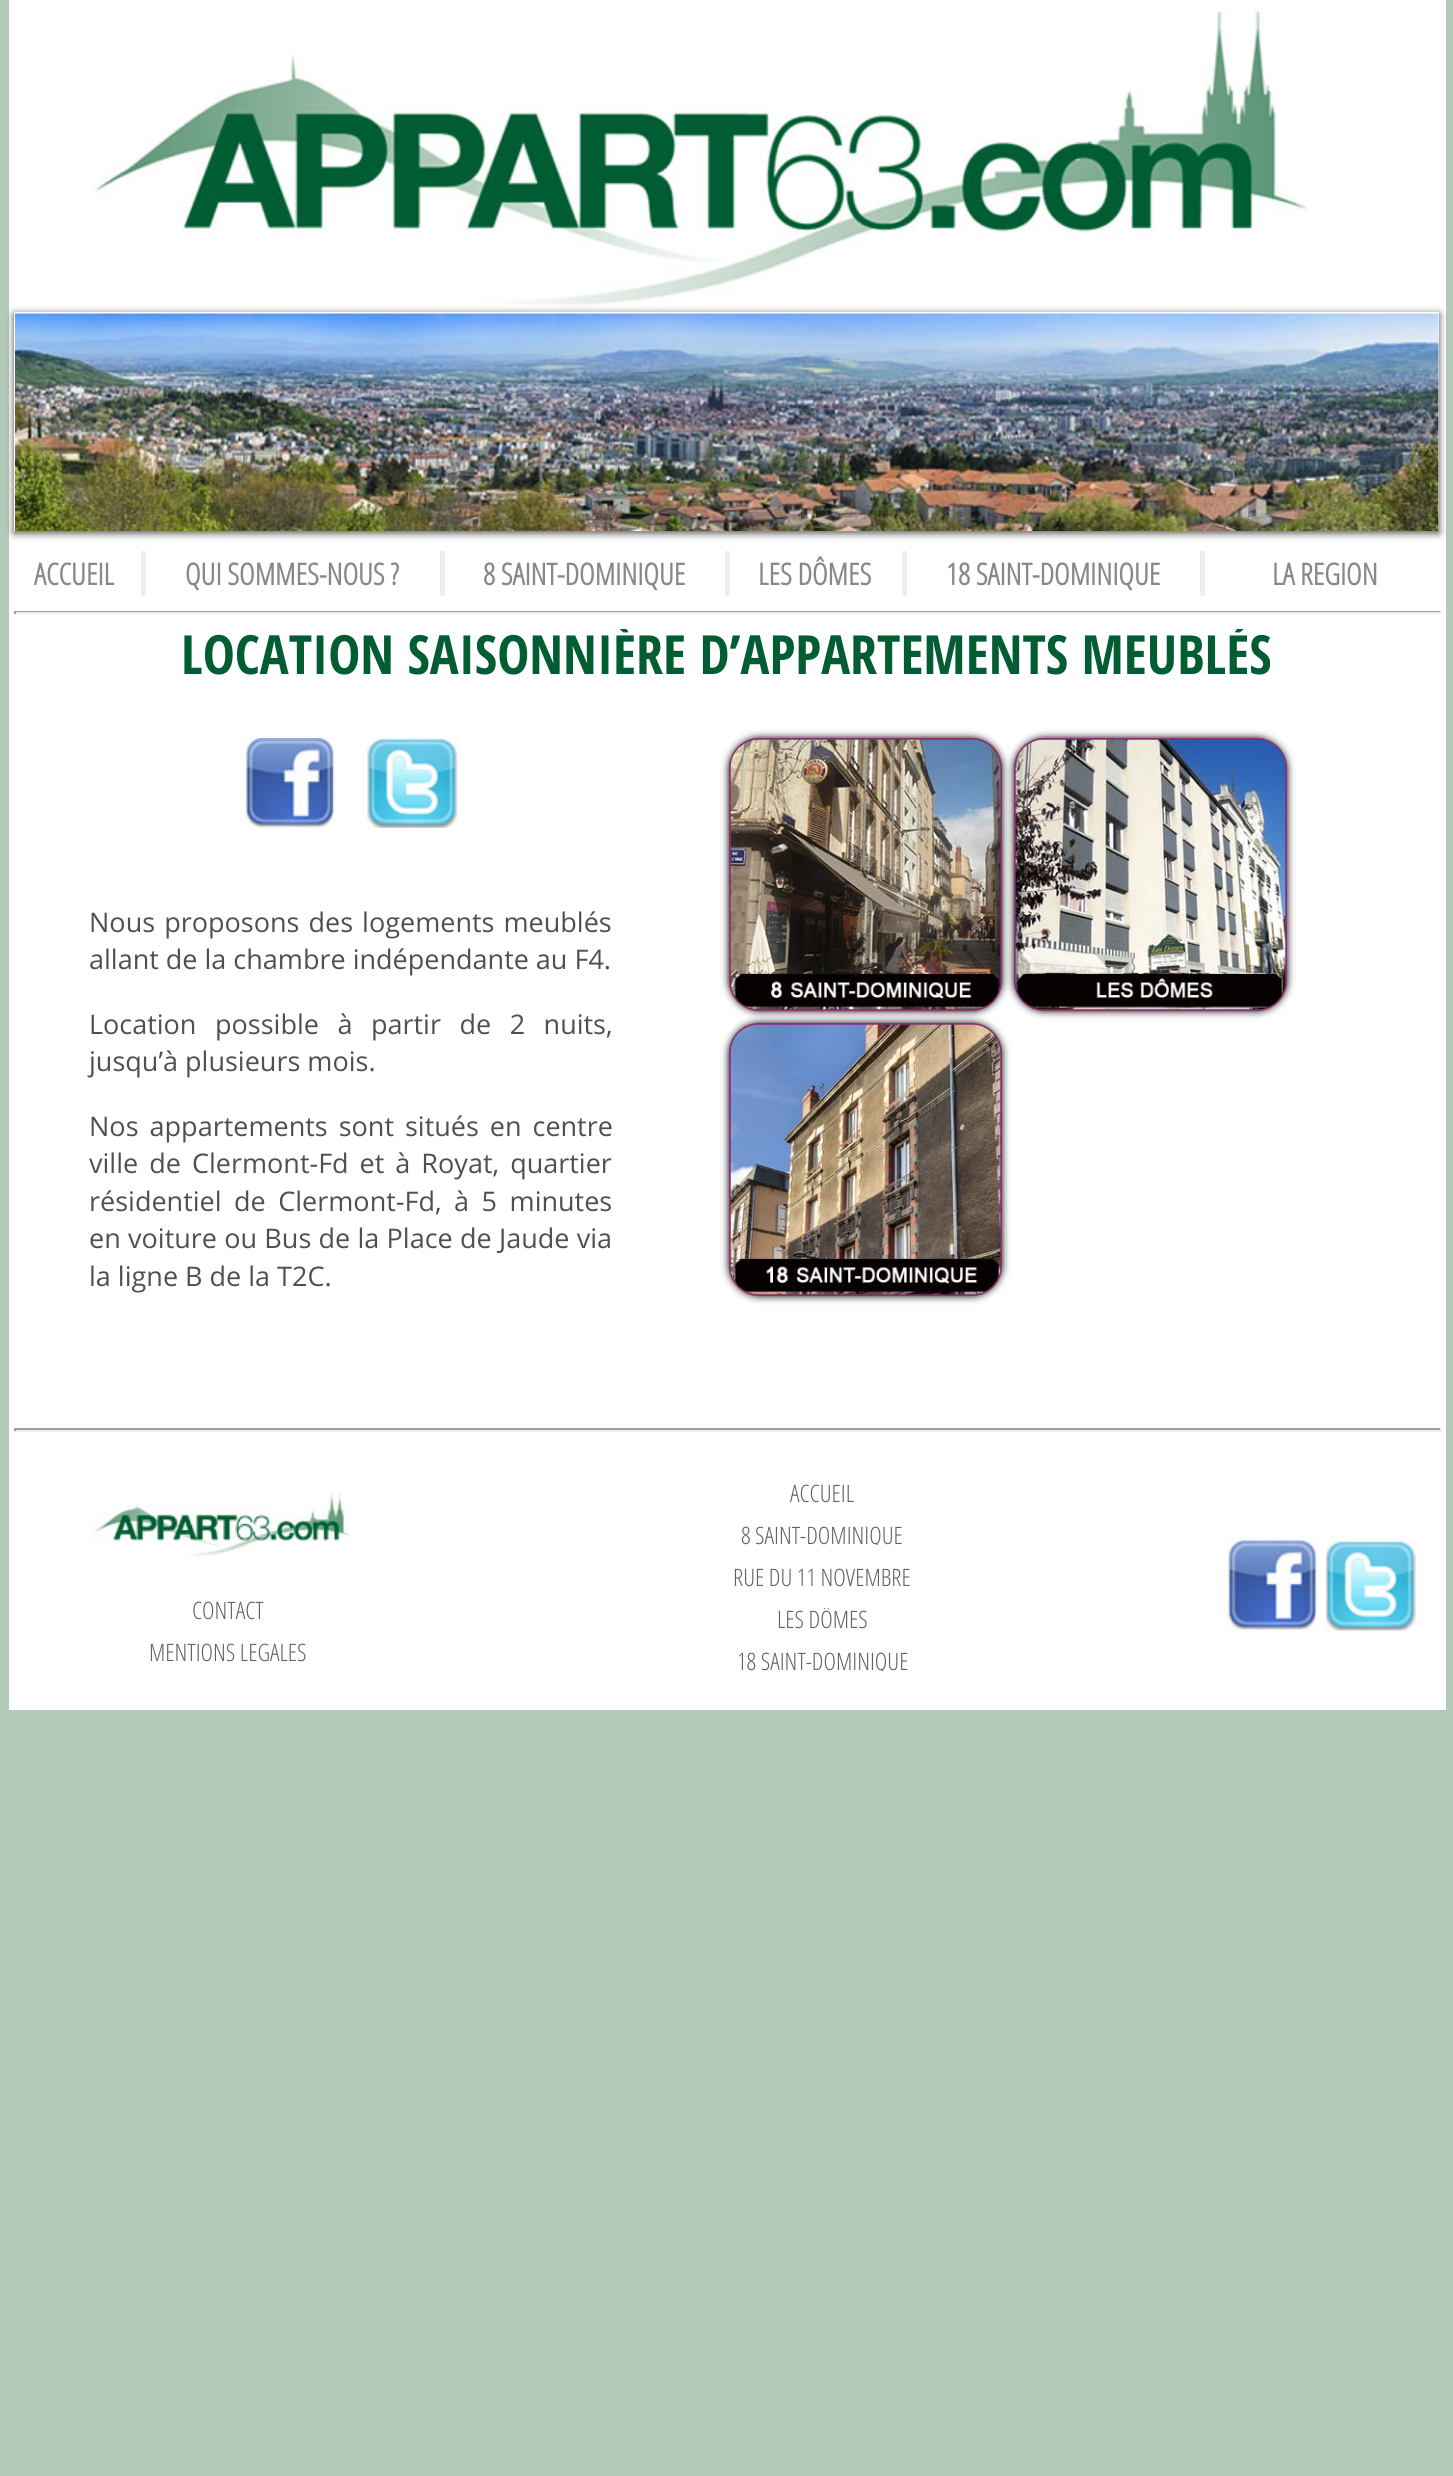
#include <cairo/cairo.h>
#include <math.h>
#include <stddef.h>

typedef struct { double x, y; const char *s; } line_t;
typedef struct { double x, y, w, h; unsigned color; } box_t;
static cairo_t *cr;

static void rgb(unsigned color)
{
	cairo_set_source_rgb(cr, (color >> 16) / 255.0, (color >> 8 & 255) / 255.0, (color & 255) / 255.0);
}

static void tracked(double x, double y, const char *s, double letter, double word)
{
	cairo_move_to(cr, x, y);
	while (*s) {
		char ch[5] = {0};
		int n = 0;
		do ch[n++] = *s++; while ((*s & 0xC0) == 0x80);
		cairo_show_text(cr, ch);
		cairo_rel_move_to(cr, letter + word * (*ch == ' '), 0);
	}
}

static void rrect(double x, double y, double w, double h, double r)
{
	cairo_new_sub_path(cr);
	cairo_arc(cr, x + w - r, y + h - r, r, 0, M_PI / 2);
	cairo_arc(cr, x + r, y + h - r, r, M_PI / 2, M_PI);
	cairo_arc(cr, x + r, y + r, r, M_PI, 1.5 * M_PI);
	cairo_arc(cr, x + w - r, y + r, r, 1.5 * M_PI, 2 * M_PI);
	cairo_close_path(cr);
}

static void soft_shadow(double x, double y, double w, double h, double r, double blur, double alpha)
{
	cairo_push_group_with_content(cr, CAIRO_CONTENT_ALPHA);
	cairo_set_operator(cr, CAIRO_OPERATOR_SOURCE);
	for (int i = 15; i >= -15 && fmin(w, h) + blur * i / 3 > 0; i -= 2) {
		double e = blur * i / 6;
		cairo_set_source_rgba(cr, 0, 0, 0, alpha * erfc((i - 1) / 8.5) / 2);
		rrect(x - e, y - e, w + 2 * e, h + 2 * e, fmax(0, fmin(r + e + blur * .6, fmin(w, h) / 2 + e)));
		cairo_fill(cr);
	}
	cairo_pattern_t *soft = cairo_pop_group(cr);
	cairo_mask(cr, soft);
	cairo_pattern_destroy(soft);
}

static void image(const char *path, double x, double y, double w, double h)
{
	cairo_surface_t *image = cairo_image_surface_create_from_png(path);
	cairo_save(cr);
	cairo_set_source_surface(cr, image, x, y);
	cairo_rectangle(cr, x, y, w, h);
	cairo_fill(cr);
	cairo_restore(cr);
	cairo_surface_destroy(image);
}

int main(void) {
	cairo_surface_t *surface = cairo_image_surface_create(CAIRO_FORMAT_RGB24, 1453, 2476);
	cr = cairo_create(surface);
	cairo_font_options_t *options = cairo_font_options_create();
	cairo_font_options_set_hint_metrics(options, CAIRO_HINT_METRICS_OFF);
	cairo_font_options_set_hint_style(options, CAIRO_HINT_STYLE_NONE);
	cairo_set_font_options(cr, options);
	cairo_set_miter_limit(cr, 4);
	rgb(0xb2cab9);
	cairo_paint(cr);
	rgb(0xffffff);
	cairo_rectangle(cr, 9, 0, 1437, 1710);
	cairo_fill(cr);
	image("img/1.png", 93, 6, 1215, 299);
	rgb(0x4a4a4a);
	soft_shadow(14, 314, 1425, 219, 0, 4, 1);
	rgb(0xffffff);
	cairo_rectangle(cr, 14, 312, 1425, 219);
	cairo_fill(cr);
	image("img/2.png", 15, 313, 1424, 218);
	{
		static const box_t items[] = {
			{141, 551, 5, 45, 0xefefe7},
			{440, 551, 5, 45, 0xefefe7},
			{725, 551, 5, 45, 0xefefe7},
			{902, 551, 5, 45, 0xefefe7},
			{1200, 551, 5, 45, 0xefefe7},
			{14, 611, 1428, 1, 0x9f9f9f},
			{1440, 611, 2, 3, 0xeeeeee},
			{14, 612, 1428, 2, 0xeeeeee},
			{14, 611, 2, 3, 0x9f9f9f},
		};
		for (size_t i = 0; i < sizeof items / sizeof *items; i++) {
			rgb(items[i].color);
			cairo_rectangle(cr, items[i].x, items[i].y, items[i].w, items[i].h);
			cairo_fill(cr);
		}
	}
	image("img/3.png", 244, 738, 91, 90);
	image("img/4.png", 367, 738, 91, 90);
	rgb(0x000000);
	soft_shadow(729, 738, 273, 273, 30, 4, 1);
	rrect(730, 739, 271, 271, 29);
	rgb(0x8d2d74);
	cairo_stroke(cr);
	image("img/5.png", 730, 739, 271, 271);
	rgb(0x000000);
	soft_shadow(1014, 738, 273, 273, 30, 4, 1);
	rrect(1015, 739, 271, 271, 29);
	rgb(0x8d2d74);
	cairo_stroke(cr);
	image("img/6.png", 1015, 739, 271, 271);
	rgb(0x000000);
	soft_shadow(729, 1023, 273, 273, 30, 4, 1);
	rrect(730, 1024, 271, 271, 29);
	rgb(0x8d2d74);
	cairo_stroke(cr);
	image("img/7.png", 730, 1024, 271, 271);
	{
		static const box_t items[] = {
			{14, 1428, 1428, 2, 0x9f9f9f},
			{1440, 1428, 2, 3, 0xeeeeee},
			{14, 1430, 1428, 2, 0xeeeeee},
			{14, 1428, 2, 3, 0x9f9f9f},
		};
		for (size_t i = 0; i < sizeof items / sizeof *items; i++) {
			rgb(items[i].color);
			cairo_rectangle(cr, items[i].x, items[i].y, items[i].w, items[i].h);
			cairo_fill(cr);
		}
	}
	image("img/8.png", 90, 1492, 264, 64);
	image("img/9.png", 1227, 1540, 90, 91);
	image("img/10.png", 1326, 1540, 90, 91);
	cairo_select_font_face(cr, "Open Sans", CAIRO_FONT_SLANT_NORMAL, CAIRO_FONT_WEIGHT_BOLD);
	cairo_set_font_size(cr, 30);
	rgb(0x898889);
	{
		static const line_t items[] = {
			{34, 585, "ACCUEIL"},
			{185, 585, "QUI SOMMES-NOUS ?"},
			{483, 585, "8 SAINT-DOMINIQUE"},
			{758, 585, "LES DÔMES"},
			{946, 585, "18 SAINT-DOMINIQUE"},
			{1272, 585, "LA REGION"},
		};
		for (size_t i = 0; i < sizeof items / sizeof *items; i++) {
			cairo_move_to(cr, items[i].x, items[i].y);
			cairo_show_text(cr, items[i].s);
		}
	}
	cairo_save(cr);
	cairo_rectangle(cr, 12, 629, 1431, 51);
	cairo_clip(cr);
	cairo_select_font_face(cr, "Open Sans Condensed", CAIRO_FONT_SLANT_NORMAL, CAIRO_FONT_WEIGHT_BOLD);
	cairo_set_font_size(cr, 54);
	rgb(0x025d32);
	cairo_move_to(cr, 181, 674);
	cairo_show_text(cr, "LOCATION SAISONNIÈRE D’APPARTEMENTS MEUBLÉS");
	cairo_restore(cr);
	cairo_select_font_face(cr, "Open Sans", CAIRO_FONT_SLANT_NORMAL, CAIRO_FONT_WEIGHT_NORMAL);
	cairo_set_font_size(cr, 27);
	rgb(0x505050);
	tracked(89, 932, "Nous proposons des logements meublés", 0, 2);
	cairo_move_to(cr, 89, 969);
	cairo_show_text(cr, "allant de la chambre indépendante au F4.");
	tracked(89, 1034, "Location possible à partir de 2 nuits,", 0, 11.5);
	cairo_move_to(cr, 89, 1071);
	cairo_show_text(cr, "jusqu’à plusieurs mois.");
	tracked(89, 1136, "Nos appartements sont situés en centre", 0, 4);
	tracked(89, 1173, "ville de Clermont-Fd et à Royat, quartier", 0, 4);
	tracked(89, 1211, "résidentiel de Clermont-Fd, à 5 minutes", 0, 5.5);
	tracked(89, 1248, "en voiture ou Bus de la Place de Jaude via", 0, 0.25);
	cairo_move_to(cr, 89, 1286);
	cairo_show_text(cr, "la ligne B de la T2C.");
	cairo_select_font_face(cr, "Open Sans Light", CAIRO_FONT_SLANT_NORMAL, CAIRO_FONT_WEIGHT_NORMAL);
	cairo_set_font_size(cr, 24);
	rgb(0x60605f);
	{
		static const line_t items[] = {
			{192, 1619, "CONTACT"},
			{149, 1661, "MENTIONS LEGALES"},
			{790, 1502, "ACCUEIL"},
		};
		for (size_t i = 0; i < sizeof items / sizeof *items; i++) {
			cairo_move_to(cr, items[i].x, items[i].y);
			cairo_show_text(cr, items[i].s);
		}
	}
	cairo_save(cr);
	cairo_rectangle(cr, 452, 1524, 741, 21);
	cairo_clip(cr);
	cairo_move_to(cr, 741, 1544);
	cairo_show_text(cr, "8 SAINT-DOMINIQUE");
	cairo_restore(cr);
	cairo_move_to(cr, 733, 1586);
	cairo_show_text(cr, "RUE DU 11 NOVEMBRE");
	cairo_save(cr);
	cairo_rectangle(cr, 452, 1608, 741, 21);
	cairo_clip(cr);
	cairo_move_to(cr, 777, 1628);
	cairo_show_text(cr, "LES DÔMES");
	cairo_restore(cr);
	cairo_save(cr);
	cairo_rectangle(cr, 452, 1650, 741, 21);
	cairo_clip(cr);
	cairo_move_to(cr, 737, 1670);
	cairo_show_text(cr, "18 SAINT-DOMINIQUE");
	cairo_restore(cr);
	cairo_surface_write_to_png(surface, "page.png");
	cairo_font_options_destroy(options);
	cairo_destroy(cr);
	cairo_surface_destroy(surface);
	return 0;
}
